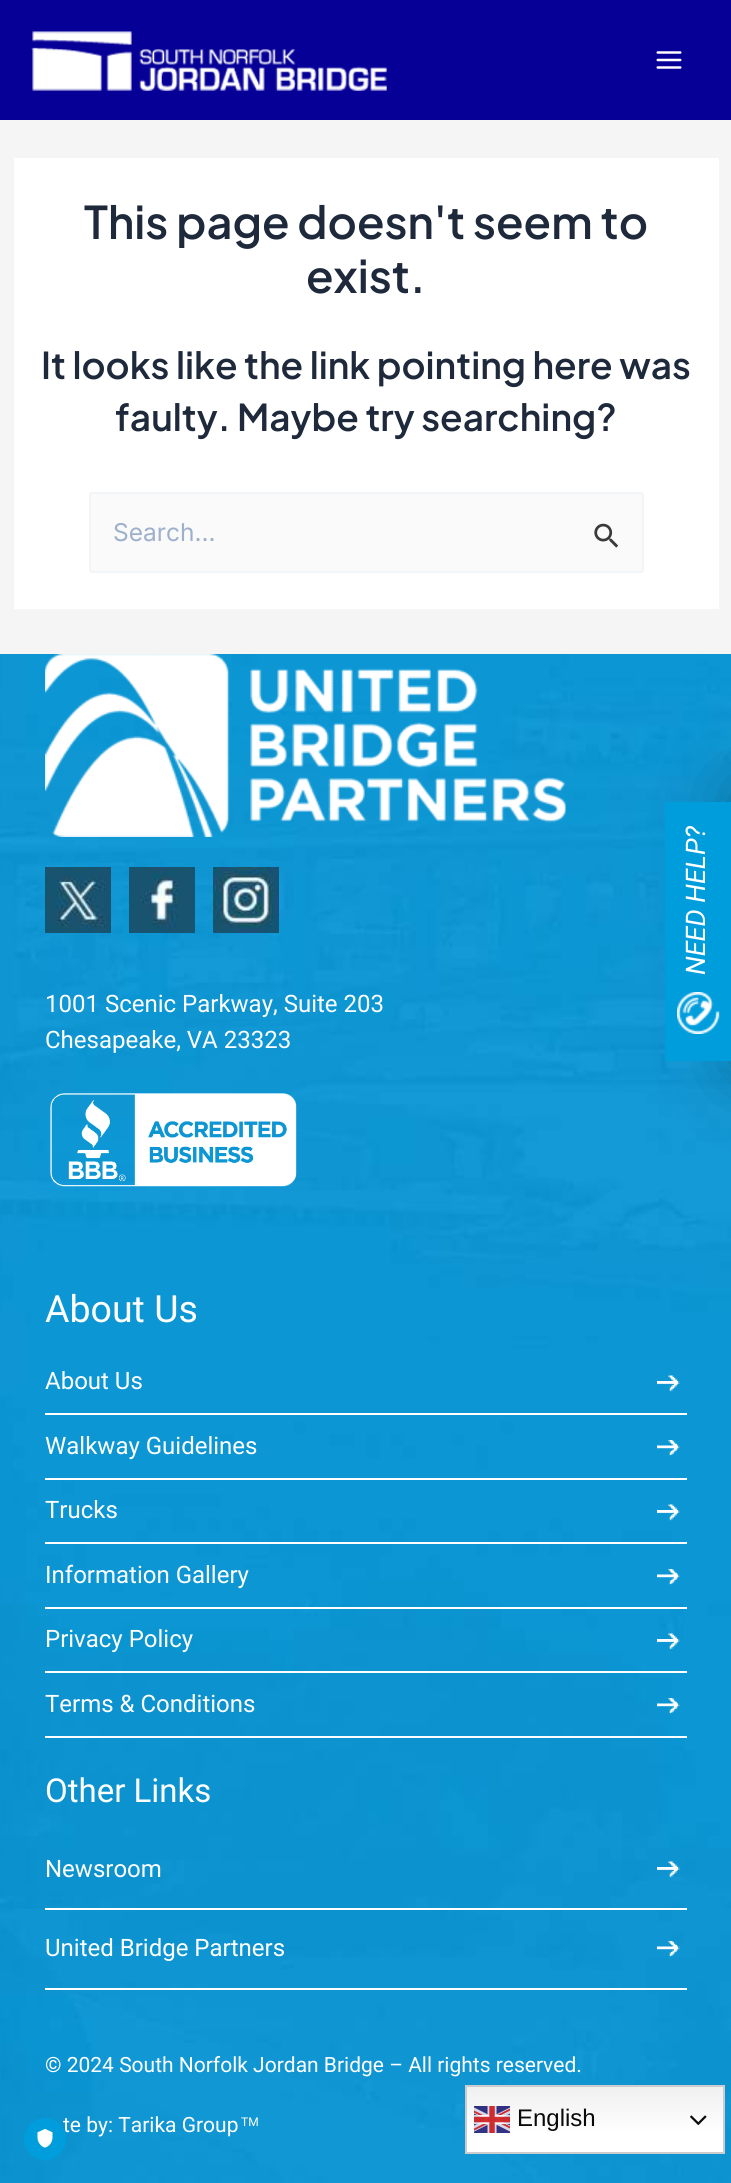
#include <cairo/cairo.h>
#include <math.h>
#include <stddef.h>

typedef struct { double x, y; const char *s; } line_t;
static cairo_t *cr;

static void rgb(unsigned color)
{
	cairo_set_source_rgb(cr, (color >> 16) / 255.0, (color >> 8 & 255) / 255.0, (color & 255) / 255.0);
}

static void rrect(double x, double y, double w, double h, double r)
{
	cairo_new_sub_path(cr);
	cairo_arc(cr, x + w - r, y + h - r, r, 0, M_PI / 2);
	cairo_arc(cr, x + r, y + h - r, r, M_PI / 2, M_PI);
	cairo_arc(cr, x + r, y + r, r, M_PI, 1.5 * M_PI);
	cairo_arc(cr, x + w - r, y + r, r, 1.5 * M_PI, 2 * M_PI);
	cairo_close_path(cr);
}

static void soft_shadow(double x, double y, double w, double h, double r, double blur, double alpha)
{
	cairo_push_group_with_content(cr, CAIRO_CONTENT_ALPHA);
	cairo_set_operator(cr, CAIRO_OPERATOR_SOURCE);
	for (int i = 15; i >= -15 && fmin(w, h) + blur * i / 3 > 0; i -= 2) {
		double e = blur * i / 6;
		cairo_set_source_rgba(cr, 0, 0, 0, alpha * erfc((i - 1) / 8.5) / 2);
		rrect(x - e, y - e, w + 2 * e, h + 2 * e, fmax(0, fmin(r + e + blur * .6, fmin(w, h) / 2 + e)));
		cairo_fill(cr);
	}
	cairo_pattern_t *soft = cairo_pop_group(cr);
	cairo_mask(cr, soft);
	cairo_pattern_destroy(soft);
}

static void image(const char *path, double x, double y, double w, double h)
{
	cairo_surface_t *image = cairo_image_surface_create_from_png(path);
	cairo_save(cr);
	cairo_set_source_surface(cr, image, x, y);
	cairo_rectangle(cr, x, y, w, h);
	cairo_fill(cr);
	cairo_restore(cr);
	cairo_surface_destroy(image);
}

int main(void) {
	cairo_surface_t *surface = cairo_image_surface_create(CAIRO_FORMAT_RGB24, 731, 2183);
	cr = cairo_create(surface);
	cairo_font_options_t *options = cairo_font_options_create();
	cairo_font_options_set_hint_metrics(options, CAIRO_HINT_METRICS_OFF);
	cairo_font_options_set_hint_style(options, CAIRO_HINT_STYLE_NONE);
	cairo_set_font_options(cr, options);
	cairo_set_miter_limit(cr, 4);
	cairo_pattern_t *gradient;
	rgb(0xf5f5f5);
	cairo_paint(cr);
	rgb(0x060097);
	cairo_rectangle(cr, 0, 0, 731, 120);
	cairo_fill(cr);
	image("img/1.png", 31, 31, 356, 60);
	image("img/2.png", 656, 51, 26, 18);
	rgb(0xffffff);
	cairo_rectangle(cr, 14, 158, 705, 451);
	cairo_fill(cr);
	rgb(0xfafafa);
	rrect(90, 493, 553, 79, 2);
	cairo_fill_preserve(cr);
	rgb(0xf2f5f7);
	cairo_stroke(cr);
	image("img/3.png", 594, 523, 24, 25);
	image("img/4.png", 0, 654, 731, 1529);
	image("img/5.png", 45, 654, 521, 183);
	image("img/6.png", 45, 867, 66, 66);
	image("img/7.png", 129, 867, 66, 66);
	image("img/8.png", 213, 867, 66, 66);
	image("img/9.png", 50, 1093, 247, 94);
	rgb(0xffffff);
	cairo_rectangle(cr, 45, 1413, 642, 2);
	cairo_fill(cr);
	image("img/10.png", 657, 1375, 23, 17);
	cairo_rectangle(cr, 45, 1478, 642, 2);
	cairo_fill(cr);
	image("img/11.png", 657, 1440, 23, 17);
	cairo_rectangle(cr, 45, 1542, 642, 2);
	cairo_fill(cr);
	image("img/10.png", 657, 1504, 23, 17);
	cairo_rectangle(cr, 45, 1607, 642, 2);
	cairo_fill(cr);
	image("img/11.png", 657, 1569, 23, 17);
	cairo_rectangle(cr, 45, 1671, 642, 2);
	cairo_fill(cr);
	image("img/12.png", 657, 1633, 23, 17);
	cairo_rectangle(cr, 45, 1736, 642, 2);
	cairo_fill(cr);
	image("img/13.png", 657, 1698, 23, 17);
	cairo_rectangle(cr, 45, 1908, 642, 2);
	cairo_fill(cr);
	image("img/14.png", 657, 1861, 23, 17);
	cairo_rectangle(cr, 45, 1988, 642, 2);
	cairo_fill(cr);
	image("img/15.png", 657, 1941, 23, 17);
	gradient = cairo_pattern_create_linear(595, 2085, 595, 2154);
	cairo_pattern_add_color_stop_rgba(gradient, 0, 0.937, 0.937, 0.937, 1);
	cairo_pattern_add_color_stop_rgba(gradient, 0.7, 1, 1, 1, 1);
	cairo_set_source(cr, gradient);
	cairo_pattern_destroy(gradient);
	cairo_rectangle(cr, 467, 2087, 256, 65);
	cairo_fill(cr);
	cairo_rectangle(cr, 466, 2086, 258, 67);
	rgb(0xcccccc);
	cairo_stroke(cr);
	image("img/16.png", 474, 2106, 36, 27);
	image("img/17.png", 690, 2115, 17, 10);
	rgb(0x000000);
	soft_shadow(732, 786, 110, 288, 0, 37, 0.25);
	rgb(0x009ddc);
	cairo_rectangle(cr, 665, 802, 66, 259);
	cairo_fill(cr);
	image("img/18.png", 677, 992, 43, 42);
	cairo_select_font_face(cr, "Plus Jakarta Sans SemiBold", CAIRO_FONT_SLANT_NORMAL, CAIRO_FONT_WEIGHT_NORMAL);
	cairo_set_font_size(cr, 45);
	rgb(0x1e293b);
	cairo_move_to(cr, 84, 239);
	cairo_show_text(cr, "This page doesn't seem to");
	cairo_move_to(cr, 306, 293);
	cairo_show_text(cr, "exist.");
	cairo_set_font_size(cr, 36.9);
	cairo_move_to(cr, 41, 379);
	cairo_show_text(cr, "It looks like the link pointing here was");
	cairo_move_to(cr, 115, 431);
	cairo_show_text(cr, "faulty. Maybe try searching?");
	cairo_select_font_face(cr, "Inter", CAIRO_FONT_SLANT_NORMAL, CAIRO_FONT_WEIGHT_NORMAL);
	cairo_set_font_size(cr, 24.5);
	rgb(0x9eb0cc);
	cairo_move_to(cr, 113, 541);
	cairo_show_text(cr, "Search...");
	cairo_select_font_face(cr, "Roboto", CAIRO_FONT_SLANT_NORMAL, CAIRO_FONT_WEIGHT_NORMAL);
	cairo_set_font_size(cr, 24);
	rgb(0xffffff);
	cairo_move_to(cr, 45, 1012);
	cairo_show_text(cr, "1001 Scenic Parkway, Suite 203");
	cairo_move_to(cr, 45, 1048);
	cairo_show_text(cr, "Chesapeake, VA 23323");
	cairo_set_font_size(cr, 37.5);
	cairo_move_to(cr, 45, 1322);
	cairo_show_text(cr, "About Us");
	cairo_set_font_size(cr, 24);
	{
		static const line_t items[] = {
			{45, 1389, "About Us"},
			{45, 1454, "Walkway Guidelines"},
			{45, 1518, "Trucks"},
			{45, 1583, "Information Gallery"},
			{45, 1647, "Privacy Policy"},
			{45, 1712, "Terms & Conditions"},
		};
		for (size_t i = 0; i < sizeof items / sizeof *items; i++) {
			cairo_move_to(cr, items[i].x, items[i].y);
			cairo_show_text(cr, items[i].s);
		}
	}
	cairo_set_font_size(cr, 33);
	cairo_move_to(cr, 45, 1802);
	cairo_show_text(cr, "Other Links");
	cairo_set_font_size(cr, 24);
	cairo_move_to(cr, 45, 1877);
	cairo_show_text(cr, "Newsroom");
	cairo_move_to(cr, 45, 1956);
	cairo_show_text(cr, "United Bridge Partners");
	cairo_set_font_size(cr, 21);
	cairo_move_to(cr, 45, 2072);
	cairo_show_text(cr, "© 2024 South Norfolk Jordan Bridge – All rights reserved.");
	cairo_move_to(cr, 63, 2132);
	cairo_show_text(cr, "te by: Tarika Group");
	cairo_set_font_size(cr, 12);
	cairo_move_to(cr, 241, 2126);
	cairo_show_text(cr, "TM");
	cairo_select_font_face(cr, "Liberation Sans", CAIRO_FONT_SLANT_NORMAL, CAIRO_FONT_WEIGHT_NORMAL);
	cairo_set_font_size(cr, 24);
	rgb(0x0a0a0a);
	cairo_move_to(cr, 517, 2126);
	cairo_show_text(cr, "English");
	cairo_select_font_face(cr, "Roboto", CAIRO_FONT_SLANT_ITALIC, CAIRO_FONT_WEIGHT_NORMAL);
	cairo_set_font_size(cr, 27);
	rgb(0xffffff);
	cairo_save(cr);
	cairo_translate(cr, 705, 975);
	cairo_rotate(cr, -90 * M_PI / 180);
	cairo_move_to(cr, 0, 0);
	cairo_show_text(cr, "NEED HELP?");
	cairo_restore(cr);
	rgb(0x009ddc);
	cairo_new_path(cr);
	cairo_arc(cr, 45, 2139, 21, 0, 2 * M_PI);
	cairo_fill(cr);
	image("img/19.png", 37, 2129, 16, 19);
	cairo_surface_write_to_png(surface, "page.png");
	cairo_font_options_destroy(options);
	cairo_destroy(cr);
	cairo_surface_destroy(surface);
	return 0;
}
